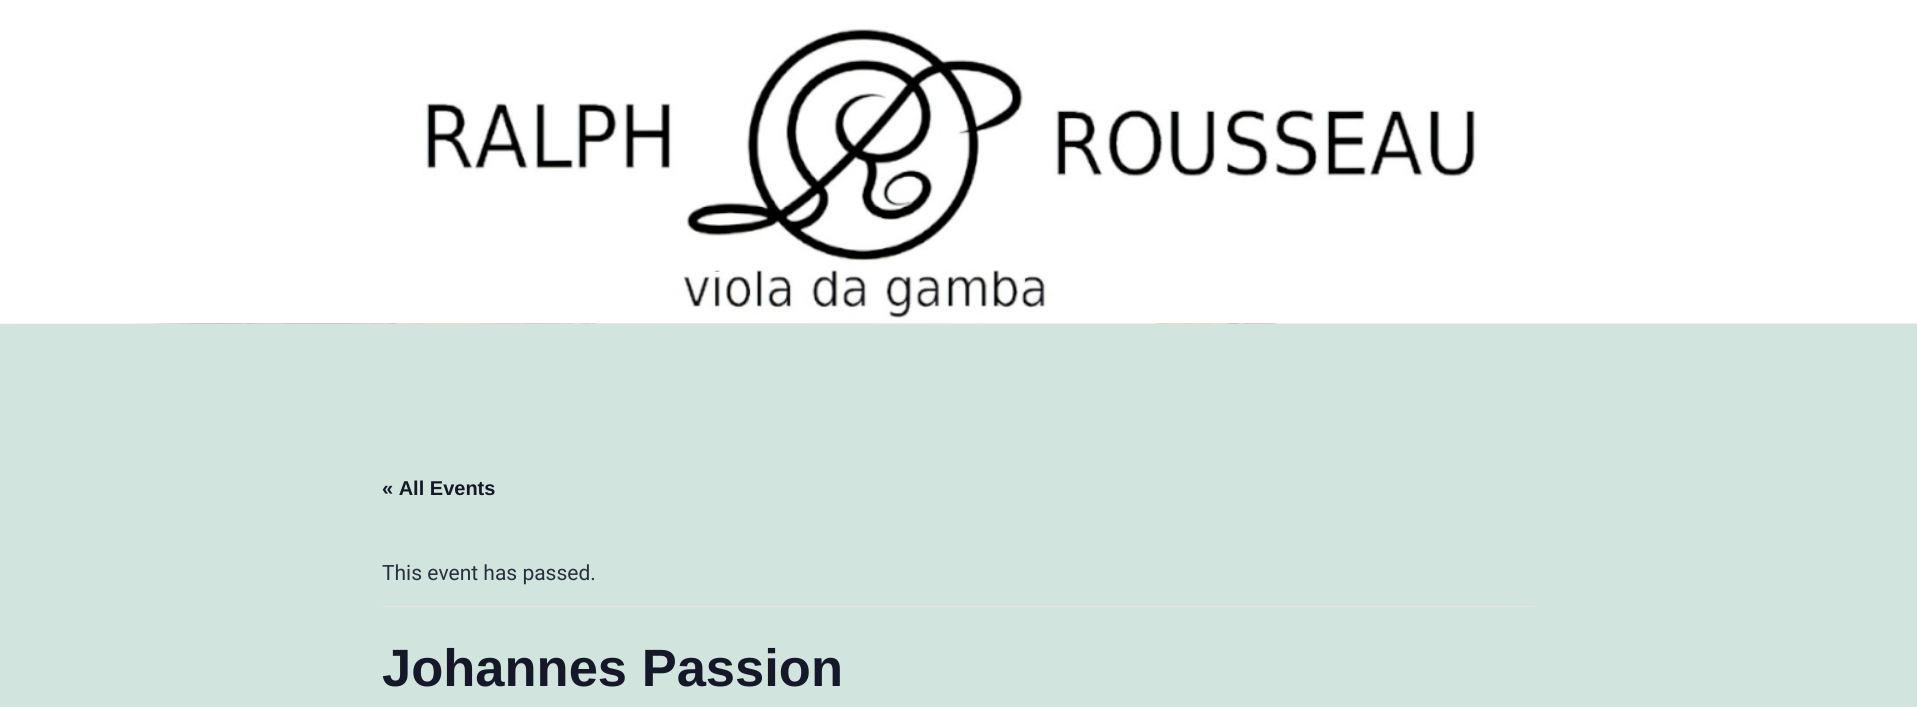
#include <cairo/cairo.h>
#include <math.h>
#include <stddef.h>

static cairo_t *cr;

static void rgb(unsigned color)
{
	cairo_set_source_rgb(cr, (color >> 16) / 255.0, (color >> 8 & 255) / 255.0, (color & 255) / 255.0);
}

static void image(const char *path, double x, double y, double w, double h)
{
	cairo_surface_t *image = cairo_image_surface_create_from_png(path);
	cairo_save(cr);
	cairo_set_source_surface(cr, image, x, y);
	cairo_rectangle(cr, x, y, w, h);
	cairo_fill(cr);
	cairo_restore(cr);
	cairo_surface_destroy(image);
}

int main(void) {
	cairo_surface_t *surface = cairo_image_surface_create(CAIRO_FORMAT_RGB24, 1917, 707);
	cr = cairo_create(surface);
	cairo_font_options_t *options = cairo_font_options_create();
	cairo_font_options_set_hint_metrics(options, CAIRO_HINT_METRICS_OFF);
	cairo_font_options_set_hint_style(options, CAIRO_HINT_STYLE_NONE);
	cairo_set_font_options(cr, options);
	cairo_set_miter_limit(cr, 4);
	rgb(0xd1e4dd);
	cairo_paint(cr);
	image("img/1.png", 0, 323, 1917, 1);
	image("img/2.png", 0, 0, 1917, 324);
	rgb(0xe4e4e4);
	cairo_rectangle(cr, 383, 606, 1152, 1);
	cairo_fill(cr);
	cairo_select_font_face(cr, "Liberation Sans", CAIRO_FONT_SLANT_NORMAL, CAIRO_FONT_WEIGHT_BOLD);
	cairo_set_font_size(cr, 20);
	rgb(0x141827);
	cairo_move_to(cr, 382, 495);
	cairo_show_text(cr, "« All Events");
	cairo_select_font_face(cr, "Roboto", CAIRO_FONT_SLANT_NORMAL, CAIRO_FONT_WEIGHT_NORMAL);
	cairo_set_font_size(cr, 21);
	rgb(0x28303d);
	cairo_move_to(cr, 382, 580);
	cairo_show_text(cr, "This event has passed.");
	cairo_select_font_face(cr, "Liberation Sans", CAIRO_FONT_SLANT_NORMAL, CAIRO_FONT_WEIGHT_BOLD);
	cairo_set_font_size(cr, 52.5);
	rgb(0x141827);
	cairo_move_to(cr, 382, 686);
	cairo_show_text(cr, "Johannes Passion");
	cairo_surface_write_to_png(surface, "page.png");
	cairo_font_options_destroy(options);
	cairo_destroy(cr);
	cairo_surface_destroy(surface);
	return 0;
}
